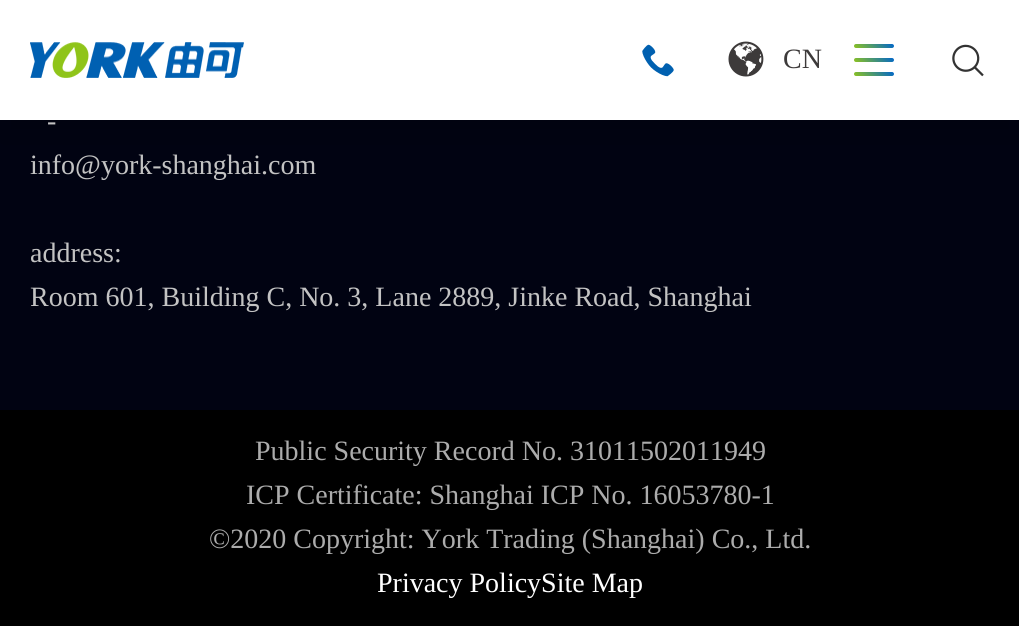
#include <cairo/cairo.h>
#include <math.h>
#include <stddef.h>

typedef struct { double x, y; const char *s; } line_t;
static cairo_t *cr;

static void rgb(unsigned color)
{
	cairo_set_source_rgb(cr, (color >> 16) / 255.0, (color >> 8 & 255) / 255.0, (color & 255) / 255.0);
}

static void rrect(double x, double y, double w, double h, double r)
{
	cairo_new_sub_path(cr);
	cairo_arc(cr, x + w - r, y + h - r, r, 0, M_PI / 2);
	cairo_arc(cr, x + r, y + h - r, r, M_PI / 2, M_PI);
	cairo_arc(cr, x + r, y + r, r, M_PI, 1.5 * M_PI);
	cairo_arc(cr, x + w - r, y + r, r, 1.5 * M_PI, 2 * M_PI);
	cairo_close_path(cr);
}

static void soft_shadow(double x, double y, double w, double h, double r, double blur, double alpha)
{
	cairo_push_group_with_content(cr, CAIRO_CONTENT_ALPHA);
	cairo_set_operator(cr, CAIRO_OPERATOR_SOURCE);
	for (int i = 15; i >= -15 && fmin(w, h) + blur * i / 3 > 0; i -= 2) {
		double e = blur * i / 6;
		cairo_set_source_rgba(cr, 0, 0, 0, alpha * erfc((i - 1) / 8.5) / 2);
		rrect(x - e, y - e, w + 2 * e, h + 2 * e, fmax(0, fmin(r + e + blur * .6, fmin(w, h) / 2 + e)));
		cairo_fill(cr);
	}
	cairo_pattern_t *soft = cairo_pop_group(cr);
	cairo_mask(cr, soft);
	cairo_pattern_destroy(soft);
}

static void image(const char *path, double x, double y, double w, double h)
{
	cairo_surface_t *image = cairo_image_surface_create_from_png(path);
	cairo_save(cr);
	cairo_set_source_surface(cr, image, x, y);
	cairo_rectangle(cr, x, y, w, h);
	cairo_fill(cr);
	cairo_restore(cr);
	cairo_surface_destroy(image);
}

int main(void) {
	cairo_surface_t *surface = cairo_image_surface_create(CAIRO_FORMAT_RGB24, 1019, 626);
	cr = cairo_create(surface);
	cairo_font_options_t *options = cairo_font_options_create();
	cairo_font_options_set_hint_metrics(options, CAIRO_HINT_METRICS_OFF);
	cairo_font_options_set_hint_style(options, CAIRO_HINT_STYLE_NONE);
	cairo_set_font_options(cr, options);
	cairo_set_miter_limit(cr, 4);
	cairo_pattern_t *gradient;
	rgb(0x010312);
	cairo_paint(cr);
	rgb(0x000000);
	soft_shadow(0, 20, 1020, 120, 0, 10, 0.1);
	rgb(0xffffff);
	cairo_rectangle(cr, 0, 0, 1019, 120);
	cairo_fill(cr);
	image("img/1.png", 30, 42, 214, 36);
	image("img/2.png", 642, 44, 32, 33);
	image("img/3.png", 728, 41, 36, 36);
	gradient = cairo_pattern_create_linear(863, 57, 885, 35);
	cairo_pattern_add_color_stop_rgba(gradient, 0, 0.557, 0.765, 0.122, 1);
	cairo_pattern_add_color_stop_rgba(gradient, 1, 0, 0.4, 0.796, 1);
	cairo_set_source(cr, gradient);
	cairo_pattern_destroy(gradient);
	rrect(854, 44, 40, 4, 2);
	cairo_fill(cr);
	gradient = cairo_pattern_create_linear(863, 71, 885, 49);
	cairo_pattern_add_color_stop_rgba(gradient, 0, 0.557, 0.765, 0.122, 1);
	cairo_pattern_add_color_stop_rgba(gradient, 1, 0, 0.4, 0.796, 1);
	cairo_set_source(cr, gradient);
	cairo_pattern_destroy(gradient);
	rrect(854, 58, 40, 4, 2);
	cairo_fill(cr);
	gradient = cairo_pattern_create_linear(863, 85, 885, 63);
	cairo_pattern_add_color_stop_rgba(gradient, 0, 0.557, 0.765, 0.122, 1);
	cairo_pattern_add_color_stop_rgba(gradient, 1, 0, 0.4, 0.796, 1);
	cairo_set_source(cr, gradient);
	cairo_pattern_destroy(gradient);
	rrect(854, 72, 40, 4, 2);
	cairo_fill(cr);
	image("img/4.png", 952, 44, 32, 33);
	rgb(0x000000);
	cairo_rectangle(cr, 0, 410, 1019, 216);
	cairo_fill(cr);
	cairo_select_font_face(cr, "Liberation Serif", CAIRO_FONT_SLANT_NORMAL, CAIRO_FONT_WEIGHT_NORMAL);
	cairo_set_font_size(cr, 28);
	rgb(0x3d3a3a);
	cairo_move_to(cr, 783, 68);
	cairo_show_text(cr, "CN");
	rgb(0xc3c3c3);
	{
		static const line_t items[] = {
			{47, 130, "-"},
			{30, 174, "info@york-shanghai.com"},
			{30, 262, "address:"},
			{30, 306, "Room 601, Building C, No. 3, Lane 2889, Jinke Road, Shanghai"},
		};
		for (size_t i = 0; i < sizeof items / sizeof *items; i++) {
			cairo_move_to(cr, items[i].x, items[i].y);
			cairo_show_text(cr, items[i].s);
		}
	}
	rgb(0xacacac);
	{
		static const line_t items[] = {
			{255, 460, "Public Security Record No. 31011502011949"},
			{246, 504, "ICP Certificate: Shanghai ICP No. 16053780-1"},
			{209, 548, "©2020 Copyright: York Trading (Shanghai) Co., Ltd."},
		};
		for (size_t i = 0; i < sizeof items / sizeof *items; i++) {
			cairo_move_to(cr, items[i].x, items[i].y);
			cairo_show_text(cr, items[i].s);
		}
	}
	rgb(0xffffff);
	cairo_move_to(cr, 377, 592);
	cairo_show_text(cr, "Privacy PolicySite Map");
	cairo_surface_write_to_png(surface, "page.png");
	cairo_font_options_destroy(options);
	cairo_destroy(cr);
	cairo_surface_destroy(surface);
	return 0;
}
